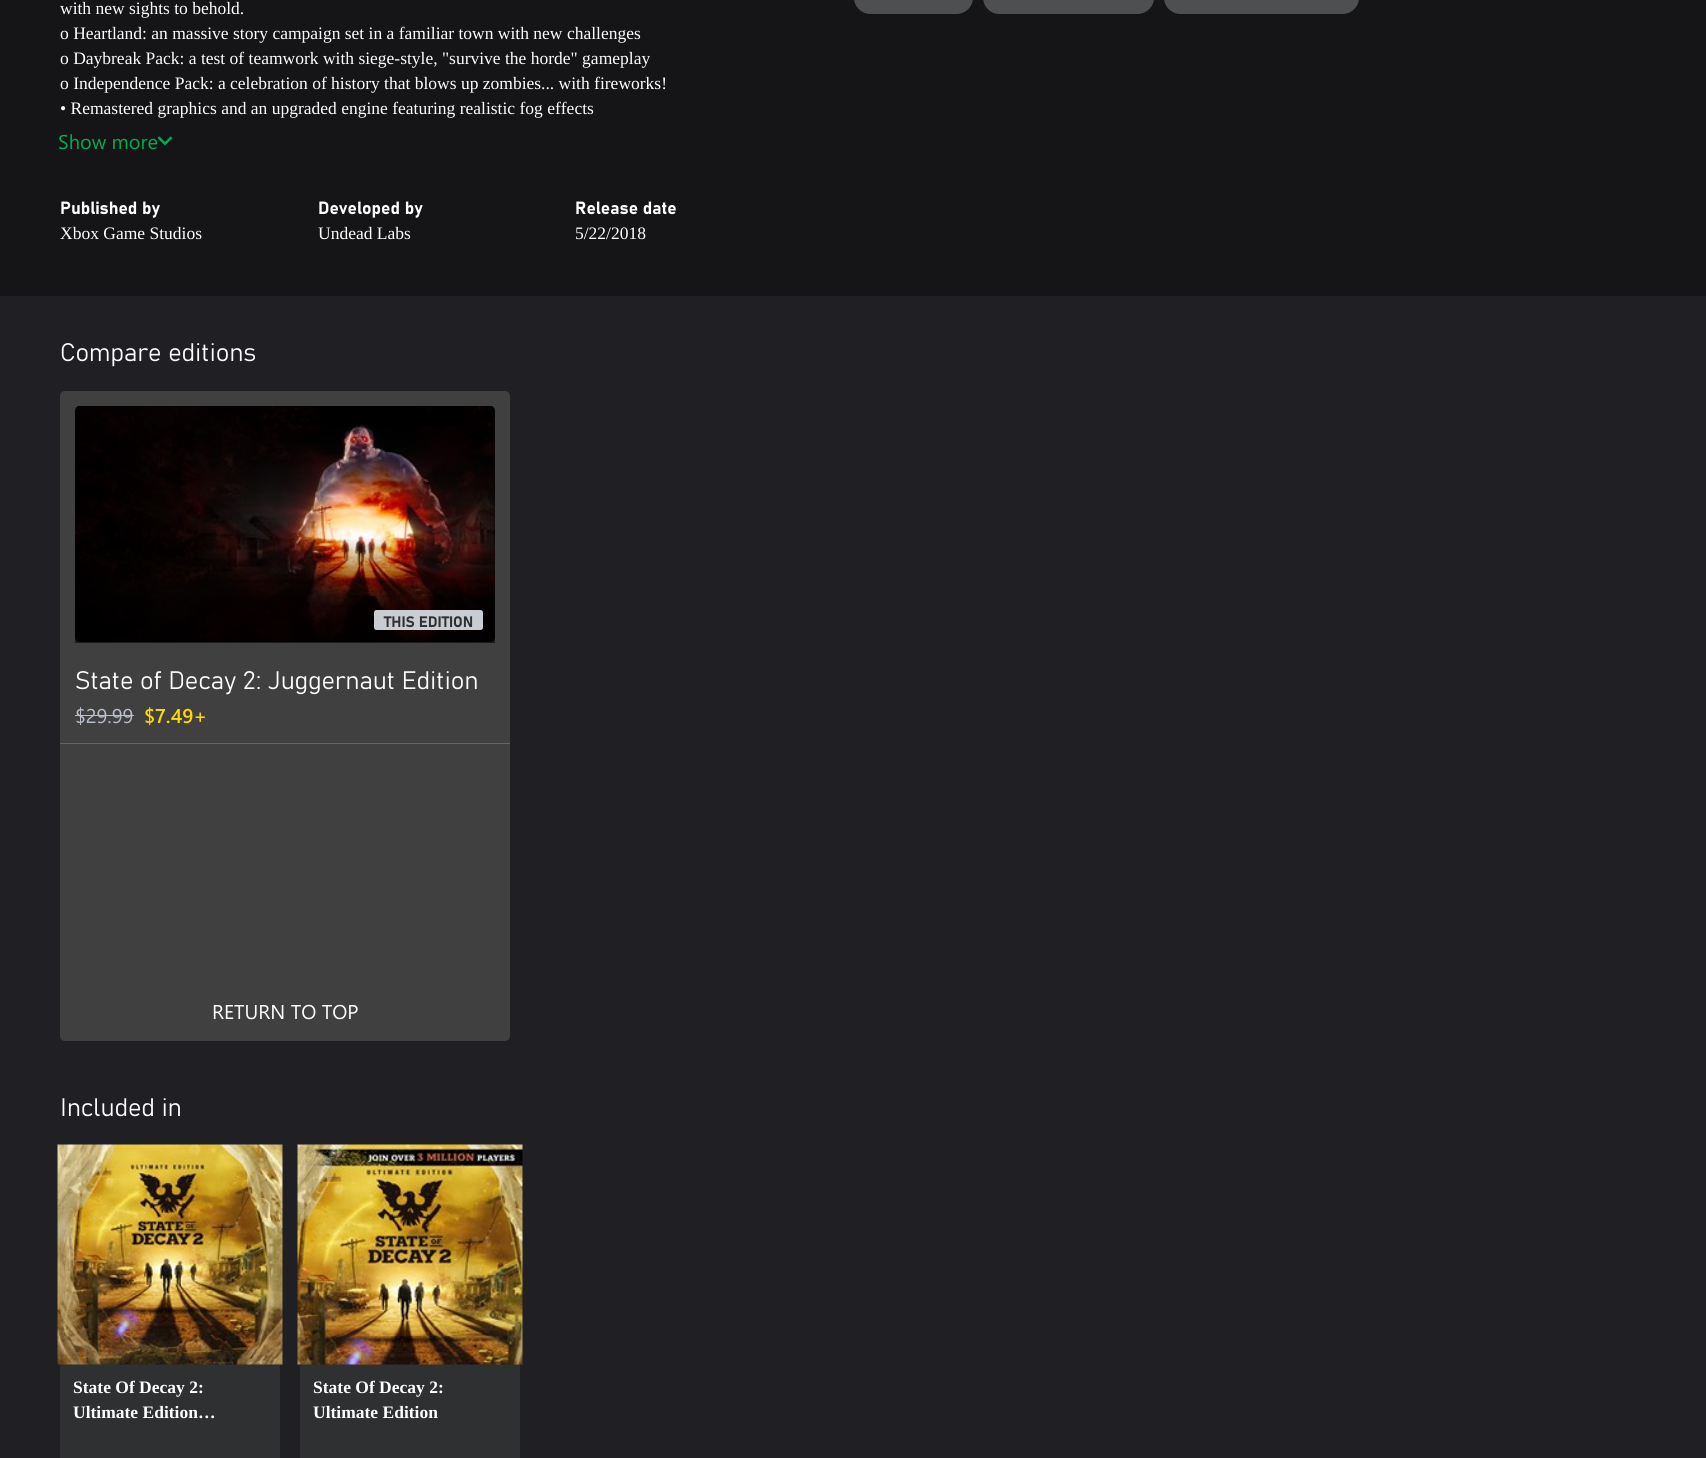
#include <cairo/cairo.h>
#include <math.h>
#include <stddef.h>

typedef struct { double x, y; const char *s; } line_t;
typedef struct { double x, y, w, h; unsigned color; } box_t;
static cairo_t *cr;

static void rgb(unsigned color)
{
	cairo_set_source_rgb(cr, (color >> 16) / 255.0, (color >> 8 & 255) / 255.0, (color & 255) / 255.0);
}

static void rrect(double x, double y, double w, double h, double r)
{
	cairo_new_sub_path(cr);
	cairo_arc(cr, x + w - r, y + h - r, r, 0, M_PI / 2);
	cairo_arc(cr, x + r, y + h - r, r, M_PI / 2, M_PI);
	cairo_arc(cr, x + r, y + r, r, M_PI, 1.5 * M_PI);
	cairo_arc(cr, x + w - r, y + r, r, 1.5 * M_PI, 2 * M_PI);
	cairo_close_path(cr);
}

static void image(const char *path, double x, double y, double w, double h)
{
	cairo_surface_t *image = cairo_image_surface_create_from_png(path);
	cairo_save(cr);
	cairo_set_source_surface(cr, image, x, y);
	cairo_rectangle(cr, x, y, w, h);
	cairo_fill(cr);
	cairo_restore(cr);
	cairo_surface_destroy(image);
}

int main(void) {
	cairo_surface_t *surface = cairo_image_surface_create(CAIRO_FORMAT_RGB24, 1706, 1458);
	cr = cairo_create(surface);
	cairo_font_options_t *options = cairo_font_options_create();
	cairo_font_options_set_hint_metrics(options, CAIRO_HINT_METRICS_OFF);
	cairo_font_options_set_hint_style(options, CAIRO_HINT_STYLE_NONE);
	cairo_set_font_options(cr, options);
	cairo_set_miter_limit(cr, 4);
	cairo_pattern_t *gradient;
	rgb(0x201f24);
	cairo_paint(cr);
	rgb(0x151517);
	cairo_rectangle(cr, 0, 0, 1706, 296);
	cairo_fill(cr);
	image("img/1.png", 158, 136, 15, 10);
	rgb(0x4d4f51);
	rrect(854, -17, 119, 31, 16.5);
	cairo_fill(cr);
	rrect(983, -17, 171, 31, 16.5);
	cairo_fill(cr);
	rrect(1164, -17, 195, 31, 16.5);
	cairo_fill(cr);
	rgb(0x404040);
	rrect(60, 391, 450, 650, 5);
	cairo_fill(cr);
	image("img/2.png", 75, 406, 420, 236);
	gradient = cairo_pattern_create_linear(285, 406, 285, 643);
	cairo_pattern_add_color_stop_rgba(gradient, 0.55, 0, 0, 0, 0);
	cairo_pattern_add_color_stop_rgba(gradient, 0.85, 0, 0, 0, 0.6);
	cairo_set_source(cr, gradient);
	cairo_pattern_destroy(gradient);
	cairo_rectangle(cr, 75, 539, 420, 104);
	cairo_fill(cr);
	cairo_set_source_rgba(cr, 0.82, 0.835, 0.855, 0.96);
	rrect(374, 610, 109, 20, 2.5);
	cairo_fill(cr);
	{
		static const box_t items[] = {
			{75, 715, 59, 1, 0xb9bfcd},
			{60, 743, 450, 1, 0x656565},
			{60, 1364, 220, 94, 0x2f3032},
		};
		for (size_t i = 0; i < sizeof items / sizeof *items; i++) {
			rgb(items[i].color);
			cairo_rectangle(cr, items[i].x, items[i].y, items[i].w, items[i].h);
			cairo_fill(cr);
		}
	}
	image("img/3.png", 57, 1144, 226, 221);
	cairo_rectangle(cr, 300, 1364, 220, 94);
	cairo_fill(cr);
	image("img/4.png", 297, 1144, 226, 221);
	cairo_select_font_face(cr, "Liberation Serif", CAIRO_FONT_SLANT_NORMAL, CAIRO_FONT_WEIGHT_NORMAL);
	cairo_set_font_size(cr, 17.5);
	rgb(0xffffff);
	{
		static const line_t items[] = {
			{60, 14, "with new sights to behold."},
			{60, 39, "o Heartland: an massive story campaign set in a familiar town with new challenges"},
			{60, 64, "o Daybreak Pack: a test of teamwork with siege-style, \"survive the horde\" gameplay"},
			{60, 89, "o Independence Pack: a celebration of history that blows up zombies... with fireworks!"},
			{60, 114, "• Remastered graphics and an upgraded engine featuring realistic fog effects"},
		};
		for (size_t i = 0; i < sizeof items / sizeof *items; i++) {
			cairo_move_to(cr, items[i].x, items[i].y);
			cairo_show_text(cr, items[i].s);
		}
	}
	cairo_select_font_face(cr, "Segoe UI", CAIRO_FONT_SLANT_NORMAL, CAIRO_FONT_WEIGHT_NORMAL);
	cairo_set_font_size(cr, 20);
	rgb(0x04ab4f);
	cairo_move_to(cr, 58, 149);
	cairo_show_text(cr, "Show more");
	cairo_select_font_face(cr, "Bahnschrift", CAIRO_FONT_SLANT_NORMAL, CAIRO_FONT_WEIGHT_BOLD);
	cairo_set_font_size(cr, 17.5);
	rgb(0xffffff);
	cairo_move_to(cr, 60, 214);
	cairo_show_text(cr, "Published by");
	cairo_select_font_face(cr, "Liberation Serif", CAIRO_FONT_SLANT_NORMAL, CAIRO_FONT_WEIGHT_NORMAL);
	cairo_move_to(cr, 60, 239);
	cairo_show_text(cr, "Xbox Game Studios");
	cairo_select_font_face(cr, "Bahnschrift", CAIRO_FONT_SLANT_NORMAL, CAIRO_FONT_WEIGHT_BOLD);
	cairo_move_to(cr, 318, 214);
	cairo_show_text(cr, "Developed by");
	cairo_select_font_face(cr, "Liberation Serif", CAIRO_FONT_SLANT_NORMAL, CAIRO_FONT_WEIGHT_NORMAL);
	cairo_move_to(cr, 318, 239);
	cairo_show_text(cr, "Undead Labs");
	cairo_select_font_face(cr, "Bahnschrift", CAIRO_FONT_SLANT_NORMAL, CAIRO_FONT_WEIGHT_BOLD);
	cairo_move_to(cr, 575, 214);
	cairo_show_text(cr, "Release date");
	cairo_select_font_face(cr, "Liberation Serif", CAIRO_FONT_SLANT_NORMAL, CAIRO_FONT_WEIGHT_NORMAL);
	cairo_move_to(cr, 575, 239);
	cairo_show_text(cr, "5/22/2018");
	cairo_select_font_face(cr, "Bahnschrift Light", CAIRO_FONT_SLANT_NORMAL, CAIRO_FONT_WEIGHT_NORMAL);
	cairo_set_font_size(cr, 25);
	cairo_move_to(cr, 60, 361);
	cairo_show_text(cr, "Compare editions");
	cairo_select_font_face(cr, "Bahnschrift", CAIRO_FONT_SLANT_NORMAL, CAIRO_FONT_WEIGHT_BOLD);
	cairo_set_font_size(cr, 15);
	rgb(0x2f3032);
	cairo_move_to(cr, 384, 627);
	cairo_show_text(cr, "THIS EDITION");
	cairo_select_font_face(cr, "Bahnschrift Light", CAIRO_FONT_SLANT_NORMAL, CAIRO_FONT_WEIGHT_NORMAL);
	cairo_set_font_size(cr, 25);
	rgb(0xffffff);
	cairo_move_to(cr, 75, 689);
	cairo_show_text(cr, "State of Decay 2: Juggernaut Edition");
	cairo_select_font_face(cr, "Segoe UI", CAIRO_FONT_SLANT_NORMAL, CAIRO_FONT_WEIGHT_NORMAL);
	cairo_set_font_size(cr, 20);
	rgb(0xb9bfcd);
	cairo_move_to(cr, 75, 723);
	cairo_show_text(cr, "$29.99");
	cairo_select_font_face(cr, "Segoe UI SemiBold", CAIRO_FONT_SLANT_NORMAL, CAIRO_FONT_WEIGHT_NORMAL);
	rgb(0xffd800);
	cairo_move_to(cr, 144, 723);
	cairo_show_text(cr, "$7.49+");
	cairo_select_font_face(cr, "Segoe UI", CAIRO_FONT_SLANT_NORMAL, CAIRO_FONT_WEIGHT_NORMAL);
	rgb(0xffffff);
	cairo_move_to(cr, 212, 1019);
	cairo_show_text(cr, "RETURN TO TOP");
	cairo_select_font_face(cr, "Bahnschrift Light", CAIRO_FONT_SLANT_NORMAL, CAIRO_FONT_WEIGHT_NORMAL);
	cairo_set_font_size(cr, 25);
	cairo_move_to(cr, 60, 1116);
	cairo_show_text(cr, "Included in");
	cairo_select_font_face(cr, "Liberation Serif", CAIRO_FONT_SLANT_NORMAL, CAIRO_FONT_WEIGHT_BOLD);
	cairo_set_font_size(cr, 17.5);
	{
		static const line_t items[] = {
			{73, 1393, "State Of Decay 2:"},
			{73, 1418, "Ultimate Edition…"},
			{313, 1393, "State Of Decay 2:"},
			{313, 1418, "Ultimate Edition"},
		};
		for (size_t i = 0; i < sizeof items / sizeof *items; i++) {
			cairo_move_to(cr, items[i].x, items[i].y);
			cairo_show_text(cr, items[i].s);
		}
	}
	cairo_surface_write_to_png(surface, "page.png");
	cairo_font_options_destroy(options);
	cairo_destroy(cr);
	cairo_surface_destroy(surface);
	return 0;
}
